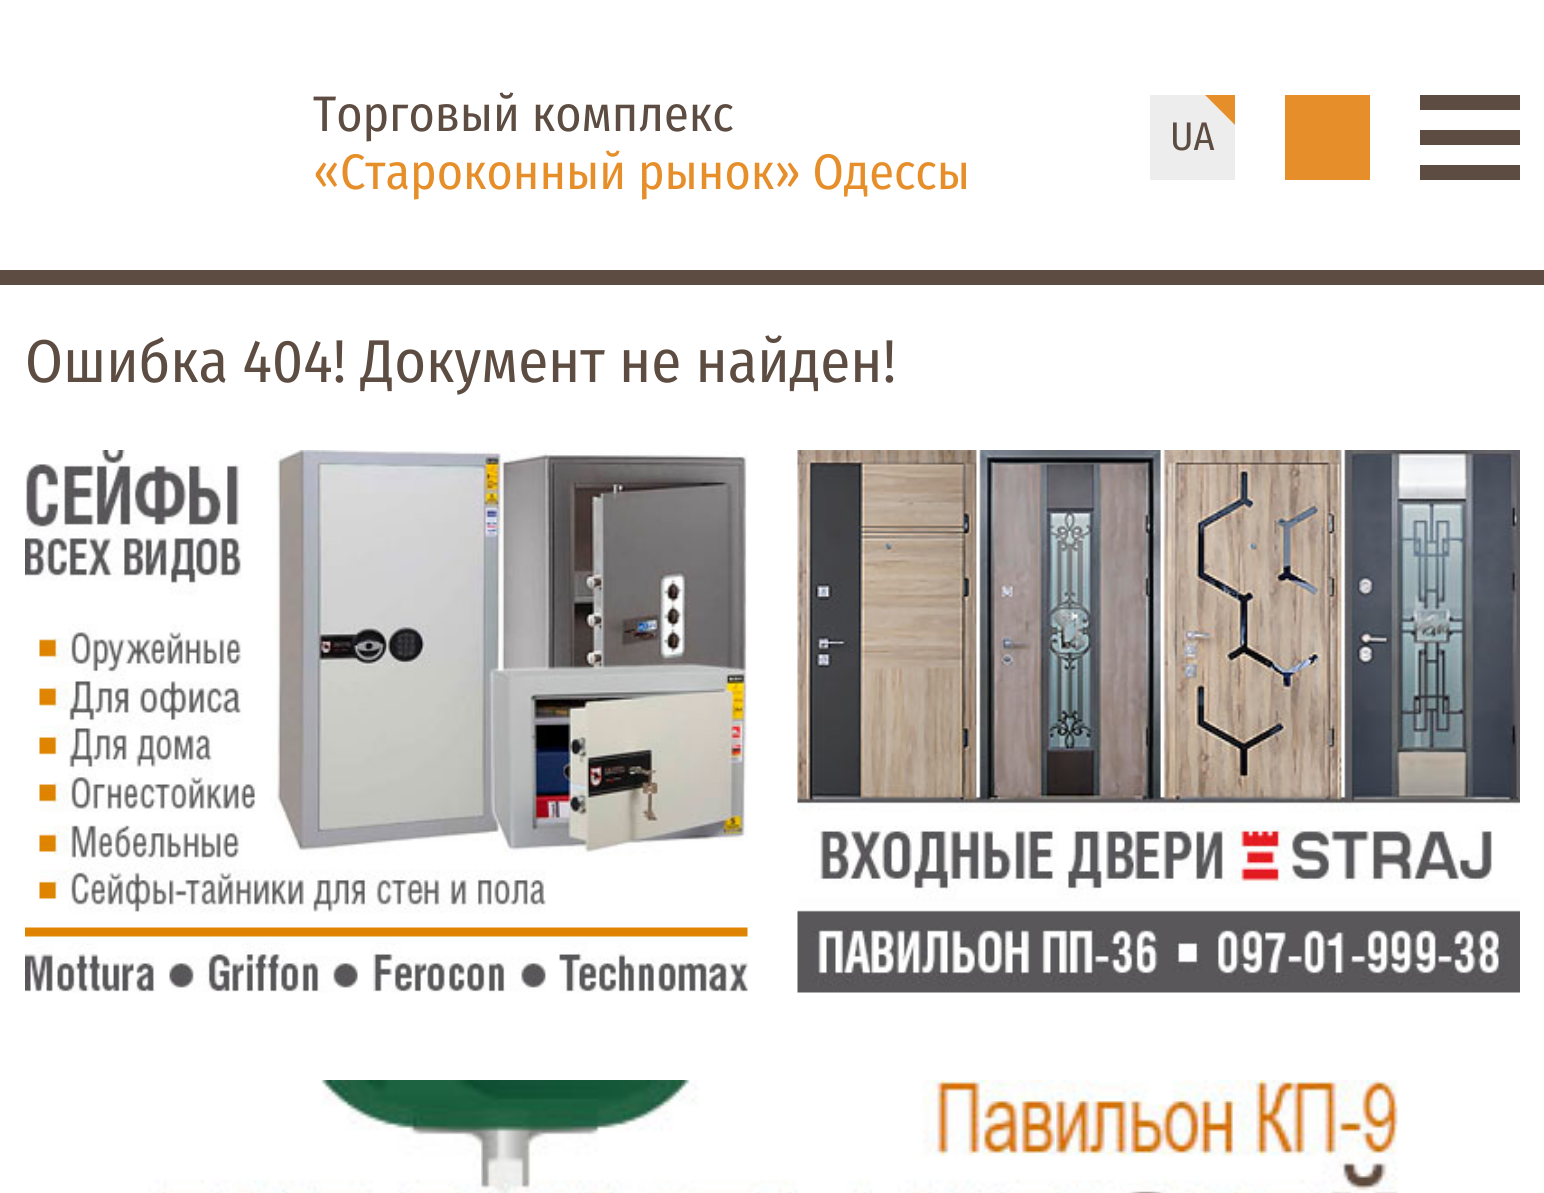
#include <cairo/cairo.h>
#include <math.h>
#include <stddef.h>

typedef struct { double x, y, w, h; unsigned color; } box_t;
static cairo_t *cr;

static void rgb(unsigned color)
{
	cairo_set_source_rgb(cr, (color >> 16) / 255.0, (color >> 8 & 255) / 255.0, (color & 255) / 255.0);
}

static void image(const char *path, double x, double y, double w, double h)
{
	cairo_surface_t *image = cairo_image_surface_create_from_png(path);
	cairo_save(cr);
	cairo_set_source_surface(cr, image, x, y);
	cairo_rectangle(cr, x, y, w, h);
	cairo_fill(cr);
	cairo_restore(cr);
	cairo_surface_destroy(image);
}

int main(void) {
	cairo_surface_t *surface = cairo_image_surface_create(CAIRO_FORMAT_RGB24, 1544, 1193);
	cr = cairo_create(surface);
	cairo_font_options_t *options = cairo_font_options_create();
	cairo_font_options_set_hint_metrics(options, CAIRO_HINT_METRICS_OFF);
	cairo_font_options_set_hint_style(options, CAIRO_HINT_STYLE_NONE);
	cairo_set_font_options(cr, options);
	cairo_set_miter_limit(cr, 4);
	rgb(0xffffff);
	cairo_paint(cr);
	{
		static const box_t items[] = {
			{1150, 95, 85, 85, 0xededed},
			{1285, 95, 85, 85, 0xe68f2a},
			{1420, 95, 100, 15, 0x5c4c41},
			{1420, 130, 100, 15, 0x5c4c41},
			{1420, 165, 100, 15, 0x5c4c41},
			{0, 270, 1544, 15, 0x5c4c41},
		};
		for (size_t i = 0; i < sizeof items / sizeof *items; i++) {
			rgb(items[i].color);
			cairo_rectangle(cr, items[i].x, items[i].y, items[i].w, items[i].h);
			cairo_fill(cr);
		}
	}
	image("img/1.png", 25, 450, 723, 543);
	image("img/2.png", 797, 450, 723, 543);
	image("img/3.png", 148, 1080, 1250, 113);
	cairo_select_font_face(cr, "Fira Sans Condensed", CAIRO_FONT_SLANT_NORMAL, CAIRO_FONT_WEIGHT_NORMAL);
	cairo_set_font_size(cr, 50);
	cairo_move_to(cr, 313, 131);
	cairo_show_text(cr, "Торговый комплекс");
	rgb(0xe68f2a);
	cairo_move_to(cr, 313, 189);
	cairo_show_text(cr, "«Староконный рынок» Одессы");
	cairo_set_font_size(cr, 40);
	rgb(0x5c4c41);
	cairo_move_to(cr, 1170, 150);
	cairo_show_text(cr, "UA");
	rgb(0xe68f2a);
	cairo_new_path(cr);
	cairo_move_to(cr, 1235, 95);
	cairo_line_to(cr, 1235, 125);
	cairo_line_to(cr, 1205, 95);
	cairo_close_path(cr);
	cairo_fill(cr);
	cairo_set_font_size(cr, 60.5);
	rgb(0x5c4c41);
	cairo_move_to(cr, 25, 382);
	cairo_show_text(cr, "Ошибка 404! Документ не найден!");
	cairo_surface_write_to_png(surface, "page.png");
	cairo_font_options_destroy(options);
	cairo_destroy(cr);
	cairo_surface_destroy(surface);
	return 0;
}
